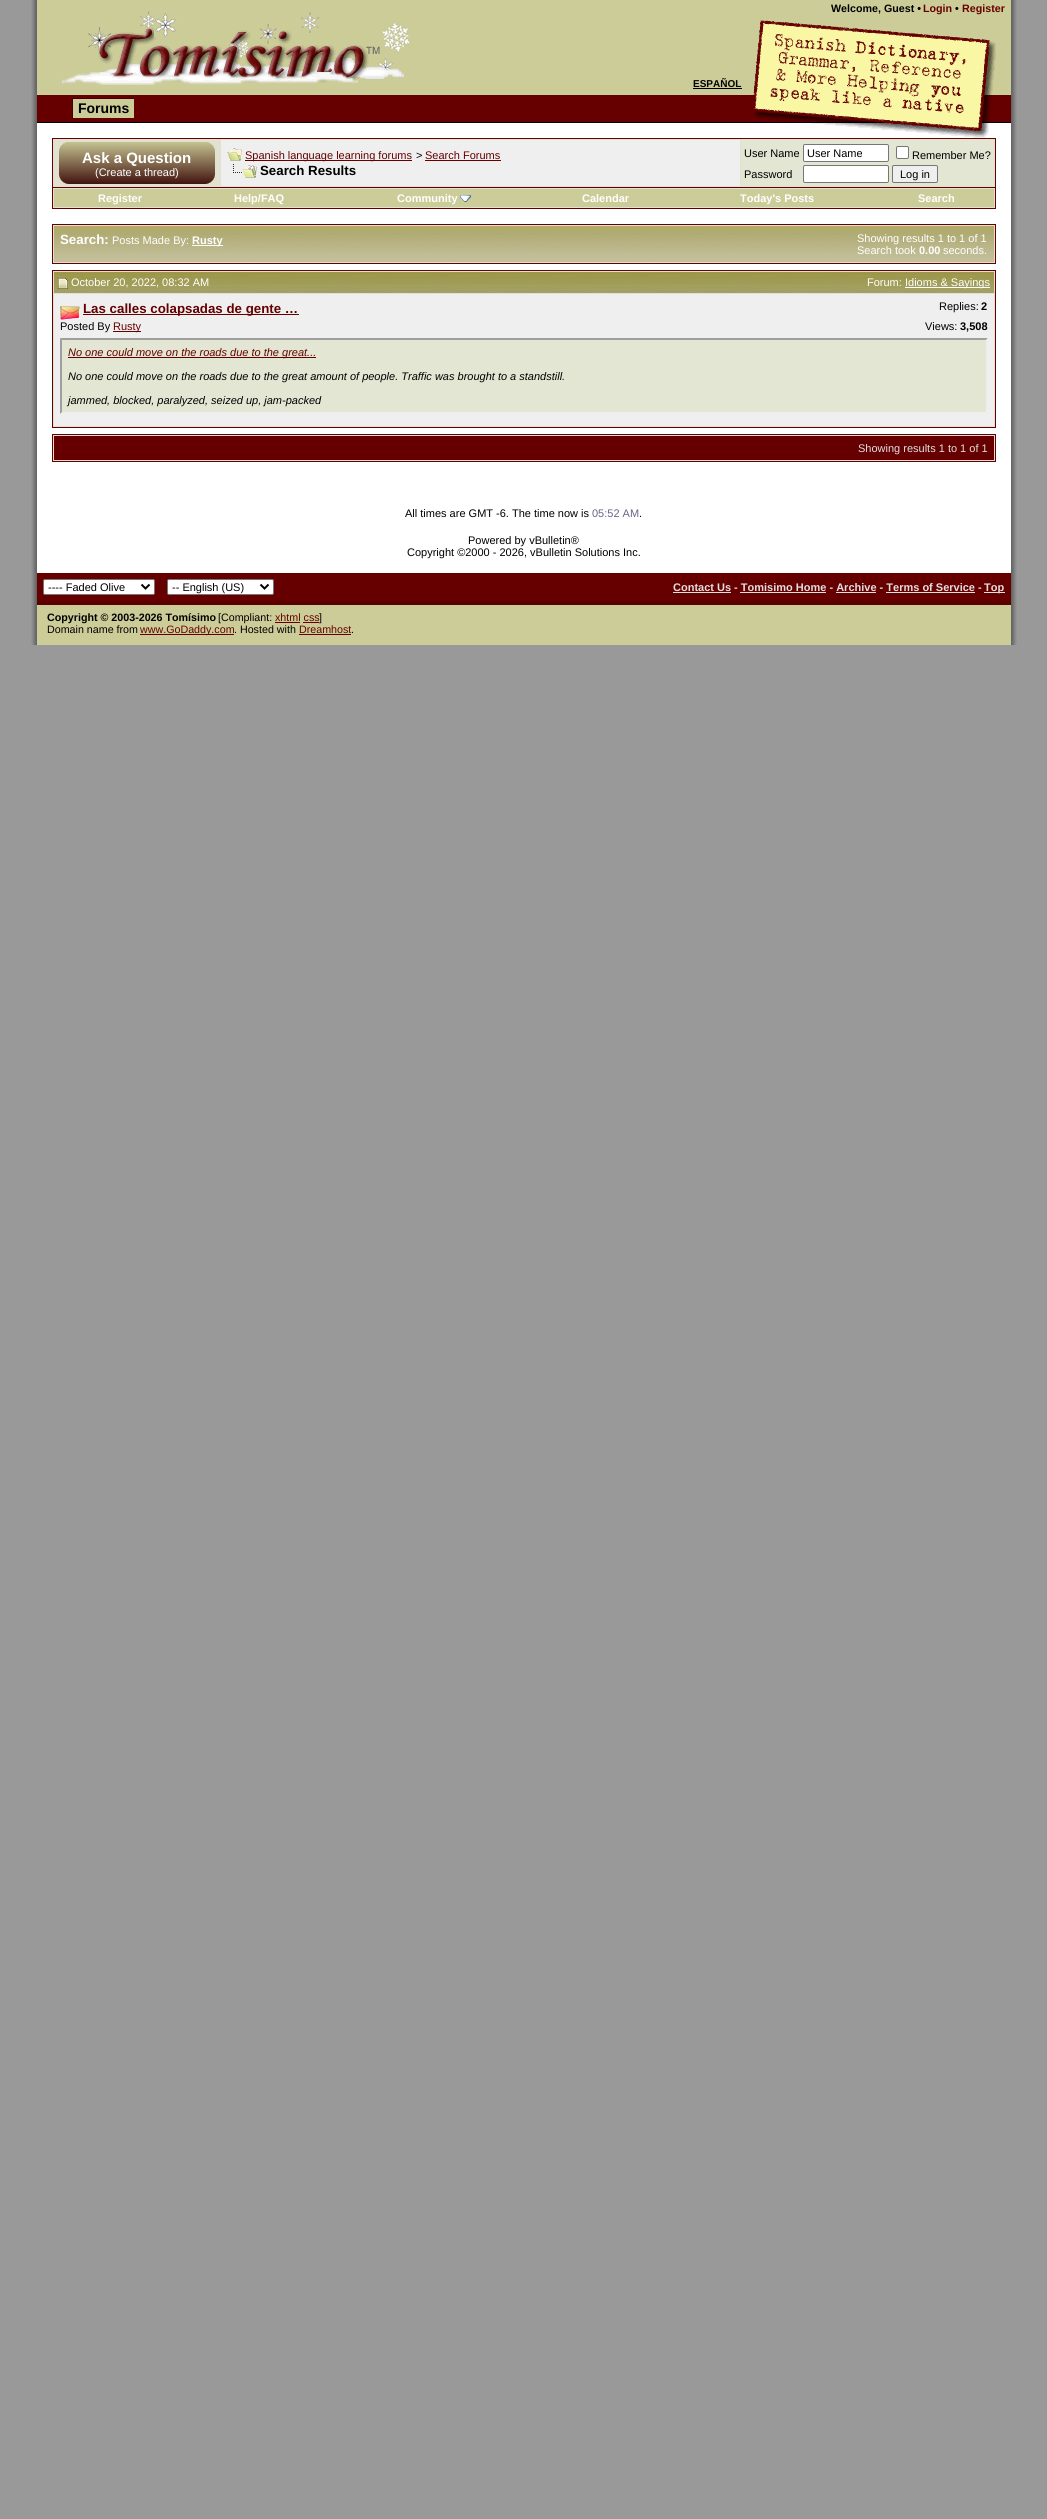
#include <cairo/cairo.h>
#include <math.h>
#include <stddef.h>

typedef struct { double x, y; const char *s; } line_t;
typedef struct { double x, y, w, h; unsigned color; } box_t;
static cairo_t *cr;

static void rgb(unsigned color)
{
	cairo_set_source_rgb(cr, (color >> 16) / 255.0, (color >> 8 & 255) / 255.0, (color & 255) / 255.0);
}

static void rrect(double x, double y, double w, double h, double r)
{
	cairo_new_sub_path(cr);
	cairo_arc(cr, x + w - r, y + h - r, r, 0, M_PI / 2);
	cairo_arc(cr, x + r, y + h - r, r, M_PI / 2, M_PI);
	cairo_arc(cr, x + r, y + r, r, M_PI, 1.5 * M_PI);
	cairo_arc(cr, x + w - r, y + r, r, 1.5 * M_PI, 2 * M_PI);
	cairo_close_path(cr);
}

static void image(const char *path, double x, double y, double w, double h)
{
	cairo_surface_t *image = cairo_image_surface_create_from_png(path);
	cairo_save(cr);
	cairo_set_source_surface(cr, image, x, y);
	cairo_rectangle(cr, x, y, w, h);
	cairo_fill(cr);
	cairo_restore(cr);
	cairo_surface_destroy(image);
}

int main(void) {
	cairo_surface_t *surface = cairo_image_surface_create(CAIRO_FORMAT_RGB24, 1047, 2519);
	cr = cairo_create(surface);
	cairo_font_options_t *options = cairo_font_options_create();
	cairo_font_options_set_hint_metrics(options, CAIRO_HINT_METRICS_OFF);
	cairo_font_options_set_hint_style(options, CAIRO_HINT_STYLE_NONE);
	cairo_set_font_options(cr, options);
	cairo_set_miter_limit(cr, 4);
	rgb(0x999999);
	cairo_paint(cr);
	image("img/1.png", 31, 0, 986, 645);
	rgb(0xcccc99);
	cairo_rectangle(cr, 37, 0, 974, 95);
	cairo_fill(cr);
	image("img/2.png", 62, 11, 349, 74);
	{
		static const box_t items[] = {
			{693, 88, 49, 1, 0x000000},
			{37, 95, 974, 27, 0x660000},
			{37, 122, 974, 1, 0x000000},
			{37, 123, 974, 450, 0xffffff},
		};
		for (size_t i = 0; i < sizeof items / sizeof *items; i++) {
			rgb(items[i].color);
			cairo_rectangle(cr, items[i].x, items[i].y, items[i].w, items[i].h);
			cairo_fill(cr);
		}
	}
	image("img/3.png", 753, 20, 243, 118);
	{
		static const box_t items[] = {
			{73, 99, 61, 19, 0xcccc99},
			{72, 98, 63, 1, 0x440000},
			{134, 98, 1, 1, 0x660000},
			{72, 98, 1, 21, 0x440000},
		};
		for (size_t i = 0; i < sizeof items / sizeof *items; i++) {
			rgb(items[i].color);
			cairo_rectangle(cr, items[i].x, items[i].y, items[i].w, items[i].h);
			cairo_fill(cr);
		}
	}
	rgb(0xe1e1d1);
	cairo_rectangle(cr, 52.5, 138.5, 943, 49);
	cairo_fill_preserve(cr);
	rgb(0x660000);
	cairo_set_line_width(cr, 1);
	cairo_stroke(cr);
	image("img/4.png", 59, 142, 156, 42);
	rgb(0xefefef);
	cairo_rectangle(cr, 221, 140, 519, 46);
	cairo_fill(cr);
	image("img/5.png", 227, 148, 15, 13);
	rgb(0x660000);
	cairo_rectangle(cr, 245, 160, 167, 1);
	cairo_fill(cr);
	cairo_rectangle(cr, 425, 160, 76, 1);
	cairo_fill(cr);
	image("img/6.png", 233, 164, 24, 14);
	rgb(0xe2e6d3);
	cairo_rectangle(cr, 741, 140, 253, 46);
	cairo_fill(cr);
	rgb(0xffffff);
	rrect(803.5, 144.5, 85, 17, 1.5);
	cairo_fill_preserve(cr);
	rgb(0x767676);
	cairo_stroke(cr);
	rgb(0xffffff);
	rrect(896.5, 146.5, 12, 12, 1.5);
	cairo_fill_preserve(cr);
	rgb(0x767676);
	cairo_stroke(cr);
	rgb(0xffffff);
	rrect(803.5, 165.5, 85, 17, 1.5);
	cairo_fill_preserve(cr);
	rgb(0x767676);
	cairo_stroke(cr);
	rgb(0xefefef);
	rrect(892.5, 165.5, 45, 17, 1.5);
	cairo_fill_preserve(cr);
	rgb(0x767676);
	cairo_stroke(cr);
	{
		static const box_t items[] = {
			{53, 188, 942, 20, 0xe1e1d1},
			{995, 188, 1, 21, 0x660000},
			{52, 208, 944, 1, 0x660000},
			{52, 188, 1, 21, 0x660000},
			{54, 189, 940, 18, 0xcccc99},
		};
		for (size_t i = 0; i < sizeof items / sizeof *items; i++) {
			rgb(items[i].color);
			cairo_rectangle(cr, items[i].x, items[i].y, items[i].w, items[i].h);
			cairo_fill(cr);
		}
	}
	image("img/7.png", 460, 195, 11, 7);
	rgb(0xe1e1d1);
	cairo_rectangle(cr, 52.5, 224.5, 943, 39);
	cairo_fill_preserve(cr);
	rgb(0x660000);
	cairo_stroke(cr);
	image("img/8.png", 54, 226, 940, 36);
	rgb(0xffffff);
	cairo_rectangle(cr, 192, 245, 31, 1);
	cairo_fill(cr);
	rgb(0xe1e1d1);
	cairo_rectangle(cr, 52.5, 270.5, 943, 157);
	cairo_fill_preserve(cr);
	rgb(0x660000);
	cairo_stroke(cr);
	image("img/9.png", 54, 272, 940, 21);
	image("img/10.png", 58, 278, 10, 11);
	rgb(0xffffff);
	cairo_rectangle(cr, 905, 287, 85, 1);
	cairo_fill(cr);
	rgb(0xefefef);
	cairo_rectangle(cr, 54, 294, 940, 132);
	cairo_fill(cr);
	image("img/11.png", 60, 306, 20, 14);
	{
		static const box_t items[] = {
			{83, 314, 216, 1, 0x660000},
			{113, 331, 28, 1, 0x660000},
			{60, 338, 928, 76, 0xe2e6d3},
		};
		for (size_t i = 0; i < sizeof items / sizeof *items; i++) {
			rgb(items[i].color);
			cairo_rectangle(cr, items[i].x, items[i].y, items[i].w, items[i].h);
			cairo_fill(cr);
		}
	}
	rgb(0x9f9f9f);
	cairo_new_path(cr);
	cairo_move_to(cr, 60, 338);
	cairo_line_to(cr, 988, 338);
	cairo_line_to(cr, 986, 340);
	cairo_line_to(cr, 62, 340);
	cairo_close_path(cr);
	cairo_fill(cr);
	rgb(0xeeeeee);
	cairo_new_path(cr);
	cairo_move_to(cr, 988, 338);
	cairo_line_to(cr, 988, 414);
	cairo_line_to(cr, 986, 412);
	cairo_line_to(cr, 986, 340);
	cairo_close_path(cr);
	cairo_fill(cr);
	cairo_new_path(cr);
	cairo_move_to(cr, 988, 414);
	cairo_line_to(cr, 60, 414);
	cairo_line_to(cr, 62, 412);
	cairo_line_to(cr, 986, 412);
	cairo_close_path(cr);
	cairo_fill(cr);
	rgb(0x9f9f9f);
	cairo_new_path(cr);
	cairo_move_to(cr, 60, 414);
	cairo_line_to(cr, 60, 338);
	cairo_line_to(cr, 62, 340);
	cairo_line_to(cr, 62, 412);
	cairo_close_path(cr);
	cairo_fill(cr);
	rgb(0x660000);
	cairo_rectangle(cr, 68, 357, 248, 1);
	cairo_fill(cr);
	rgb(0xe1e1d1);
	cairo_rectangle(cr, 52.5, 434.5, 943, 27);
	cairo_fill_preserve(cr);
	rgb(0x660000);
	cairo_stroke(cr);
	cairo_rectangle(cr, 54, 436, 940, 24);
	cairo_fill(cr);
	cairo_rectangle(cr, 37, 573, 974, 28);
	cairo_fill(cr);
	rgb(0xffffff);
	rrect(43.5, 579.5, 111, 15, 1.5);
	cairo_fill_preserve(cr);
	rgb(0x767676);
	cairo_stroke(cr);
	cairo_new_path(cr);
	cairo_move_to(cr, 141.5, 584.5);
	cairo_line_to(cr, 145.5, 588.5);
	cairo_line_to(cr, 149.5, 584.5);
	rgb(0x000000);
	cairo_set_line_width(cr, 2);
	cairo_stroke(cr);
	rgb(0xffffff);
	rrect(167.5, 579.5, 106, 15, 1.5);
	cairo_fill_preserve(cr);
	rgb(0x767676);
	cairo_set_line_width(cr, 1);
	cairo_stroke(cr);
	cairo_new_path(cr);
	cairo_move_to(cr, 260.5, 584.5);
	cairo_line_to(cr, 264.5, 588.5);
	cairo_line_to(cr, 268.5, 584.5);
	rgb(0x000000);
	cairo_set_line_width(cr, 2);
	cairo_stroke(cr);
	{
		static const box_t items[] = {
			{673, 592, 58, 1, 0xe0e0e0},
			{740, 592, 86, 1, 0xe0e0e0},
			{836, 592, 40, 1, 0xe0e0e0},
			{886, 592, 89, 1, 0xe0e0e0},
			{984, 592, 21, 1, 0xe0e0e0},
		};
		for (size_t i = 0; i < sizeof items / sizeof *items; i++) {
			rgb(items[i].color);
			cairo_rectangle(cr, items[i].x, items[i].y, items[i].w, items[i].h);
			cairo_fill(cr);
		}
	}
	image("img/12.png", 37, 601, 974, 44);
	{
		static const box_t items[] = {
			{275, 622, 25, 1, 0x660000},
			{303, 622, 16, 1, 0x660000},
			{140, 634, 94, 1, 0x660000},
			{299, 634, 52, 1, 0x660000},
		};
		for (size_t i = 0; i < sizeof items / sizeof *items; i++) {
			rgb(items[i].color);
			cairo_rectangle(cr, items[i].x, items[i].y, items[i].w, items[i].h);
			cairo_fill(cr);
		}
	}
	cairo_select_font_face(cr, "Liberation Sans", CAIRO_FONT_SLANT_NORMAL, CAIRO_FONT_WEIGHT_BOLD);
	cairo_set_font_size(cr, 10.7);
	rgb(0x000000);
	cairo_move_to(cr, 831, 12);
	cairo_show_text(cr, "Welcome, Guest •");
	rgb(0x660000);
	cairo_move_to(cr, 923, 12);
	cairo_show_text(cr, "Login");
	rgb(0x000000);
	cairo_move_to(cr, 955, 12);
	cairo_show_text(cr, "•");
	rgb(0x660000);
	cairo_move_to(cr, 962, 12);
	cairo_show_text(cr, "Register");
	cairo_set_font_size(cr, 10);
	rgb(0x000000);
	cairo_move_to(cr, 693, 87);
	cairo_show_text(cr, "ESPAÑOL");
	cairo_set_font_size(cr, 14);
	cairo_move_to(cr, 78, 113);
	cairo_show_text(cr, "Forums");
	cairo_set_font_size(cr, 15);
	rgb(0xffffff);
	cairo_move_to(cr, 82, 163);
	cairo_show_text(cr, "Ask a Question");
	cairo_select_font_face(cr, "Liberation Sans", CAIRO_FONT_SLANT_NORMAL, CAIRO_FONT_WEIGHT_NORMAL);
	cairo_set_font_size(cr, 11);
	cairo_move_to(cr, 95, 176);
	cairo_show_text(cr, "(Create a thread)");
	rgb(0x660000);
	cairo_move_to(cr, 245, 159);
	cairo_show_text(cr, "Spanish language learning forums");
	rgb(0x000000);
	cairo_move_to(cr, 416, 159);
	cairo_show_text(cr, ">");
	rgb(0x660000);
	cairo_move_to(cr, 425, 159);
	cairo_show_text(cr, "Search Forums");
	cairo_select_font_face(cr, "Liberation Sans", CAIRO_FONT_SLANT_NORMAL, CAIRO_FONT_WEIGHT_BOLD);
	cairo_set_font_size(cr, 13.3);
	rgb(0x000000);
	cairo_move_to(cr, 260, 175);
	cairo_show_text(cr, "Search Results");
	cairo_select_font_face(cr, "Liberation Sans", CAIRO_FONT_SLANT_NORMAL, CAIRO_FONT_WEIGHT_NORMAL);
	cairo_set_font_size(cr, 11);
	{
		static const line_t items[] = {
			{744, 157, "User Name"},
			{807, 157, "User Name"},
			{912, 159, "Remember Me?"},
			{744, 178, "Password"},
			{900, 178, "Log in"},
		};
		for (size_t i = 0; i < sizeof items / sizeof *items; i++) {
			cairo_move_to(cr, items[i].x, items[i].y);
			cairo_show_text(cr, items[i].s);
		}
	}
	cairo_select_font_face(cr, "Liberation Sans", CAIRO_FONT_SLANT_NORMAL, CAIRO_FONT_WEIGHT_BOLD);
	rgb(0xffffff);
	{
		static const line_t items[] = {
			{98, 202, "Register"},
			{234, 202, "Help/FAQ"},
			{397, 202, "Community"},
			{582, 202, "Calendar"},
			{740, 202, "Today's Posts"},
			{918, 202, "Search"},
		};
		for (size_t i = 0; i < sizeof items / sizeof *items; i++) {
			cairo_move_to(cr, items[i].x, items[i].y);
			cairo_show_text(cr, items[i].s);
		}
	}
	cairo_set_font_size(cr, 13.3);
	cairo_move_to(cr, 60, 244);
	cairo_show_text(cr, "Search:");
	cairo_select_font_face(cr, "Liberation Sans", CAIRO_FONT_SLANT_NORMAL, CAIRO_FONT_WEIGHT_NORMAL);
	cairo_set_font_size(cr, 11);
	cairo_move_to(cr, 112, 244);
	cairo_show_text(cr, "Posts Made By:");
	cairo_select_font_face(cr, "Liberation Sans", CAIRO_FONT_SLANT_NORMAL, CAIRO_FONT_WEIGHT_BOLD);
	cairo_move_to(cr, 192, 244);
	cairo_show_text(cr, "Rusty");
	cairo_select_font_face(cr, "Liberation Sans", CAIRO_FONT_SLANT_NORMAL, CAIRO_FONT_WEIGHT_NORMAL);
	cairo_move_to(cr, 857, 242);
	cairo_show_text(cr, "Showing results 1 to 1 of 1");
	cairo_move_to(cr, 857, 254);
	cairo_show_text(cr, "Search took");
	cairo_select_font_face(cr, "Liberation Sans", CAIRO_FONT_SLANT_NORMAL, CAIRO_FONT_WEIGHT_BOLD);
	cairo_move_to(cr, 919, 254);
	cairo_show_text(cr, "0.00");
	cairo_select_font_face(cr, "Liberation Sans", CAIRO_FONT_SLANT_NORMAL, CAIRO_FONT_WEIGHT_NORMAL);
	{
		static const line_t items[] = {
			{943, 254, "seconds."},
			{71, 286, "October 20, 2022, 08:32 AM"},
			{867, 286, "Forum:"},
			{905, 286, "Idioms & Sayings"},
		};
		for (size_t i = 0; i < sizeof items / sizeof *items; i++) {
			cairo_move_to(cr, items[i].x, items[i].y);
			cairo_show_text(cr, items[i].s);
		}
	}
	cairo_select_font_face(cr, "Liberation Sans", CAIRO_FONT_SLANT_NORMAL, CAIRO_FONT_WEIGHT_BOLD);
	cairo_set_font_size(cr, 13.3);
	rgb(0x660000);
	cairo_move_to(cr, 83, 313);
	cairo_show_text(cr, "Las calles colapsadas de gente …");
	cairo_select_font_face(cr, "Liberation Sans", CAIRO_FONT_SLANT_NORMAL, CAIRO_FONT_WEIGHT_NORMAL);
	cairo_set_font_size(cr, 11);
	rgb(0x000000);
	cairo_move_to(cr, 939, 310);
	cairo_show_text(cr, "Replies:");
	cairo_select_font_face(cr, "Liberation Sans", CAIRO_FONT_SLANT_NORMAL, CAIRO_FONT_WEIGHT_BOLD);
	cairo_move_to(cr, 981, 310);
	cairo_show_text(cr, "2");
	cairo_select_font_face(cr, "Liberation Sans", CAIRO_FONT_SLANT_NORMAL, CAIRO_FONT_WEIGHT_NORMAL);
	cairo_move_to(cr, 60, 330);
	cairo_show_text(cr, "Posted By");
	rgb(0x660000);
	cairo_move_to(cr, 113, 330);
	cairo_show_text(cr, "Rusty");
	rgb(0x000000);
	cairo_move_to(cr, 925, 330);
	cairo_show_text(cr, "Views:");
	cairo_select_font_face(cr, "Liberation Sans", CAIRO_FONT_SLANT_NORMAL, CAIRO_FONT_WEIGHT_BOLD);
	cairo_move_to(cr, 960, 330);
	cairo_show_text(cr, "3,508");
	cairo_select_font_face(cr, "Liberation Sans", CAIRO_FONT_SLANT_ITALIC, CAIRO_FONT_WEIGHT_NORMAL);
	rgb(0x660000);
	cairo_move_to(cr, 68, 356);
	cairo_show_text(cr, "No one could move on the roads due to the great...");
	rgb(0x000000);
	cairo_move_to(cr, 68, 380);
	cairo_show_text(cr, "No one could move on the roads due to the great amount of people. Traffic was brought to a standstill.");
	cairo_move_to(cr, 68, 404);
	cairo_show_text(cr, "jammed, blocked, paralyzed, seized up, jam-packed");
	cairo_select_font_face(cr, "Liberation Sans", CAIRO_FONT_SLANT_NORMAL, CAIRO_FONT_WEIGHT_NORMAL);
	rgb(0xe0e0e0);
	cairo_move_to(cr, 858, 452);
	cairo_show_text(cr, "Showing results 1 to 1 of 1");
	rgb(0x000000);
	cairo_move_to(cr, 405, 517);
	cairo_show_text(cr, "All times are GMT -6. The time now is");
	rgb(0x666686);
	cairo_move_to(cr, 592, 517);
	cairo_show_text(cr, "05:52 AM");
	rgb(0x000000);
	{
		static const line_t items[] = {
			{639, 517, "."},
			{468, 544, "Powered by vBulletin®"},
			{407, 556, "Copyright ©2000 - 2026, vBulletin Solutions Inc."},
			{48, 591, "---- Faded Olive"},
			{172, 591, "-- English (US)"},
		};
		for (size_t i = 0; i < sizeof items / sizeof *items; i++) {
			cairo_move_to(cr, items[i].x, items[i].y);
			cairo_show_text(cr, items[i].s);
		}
	}
	cairo_select_font_face(cr, "Liberation Sans", CAIRO_FONT_SLANT_NORMAL, CAIRO_FONT_WEIGHT_BOLD);
	rgb(0xe0e0e0);
	cairo_move_to(cr, 673, 591);
	cairo_show_text(cr, "Contact Us - Tomisimo Home - Archive - Terms of Service -");
	cairo_move_to(cr, 984, 591);
	cairo_show_text(cr, "Top");
	cairo_set_font_size(cr, 10.7);
	rgb(0x000000);
	cairo_move_to(cr, 47, 621);
	cairo_show_text(cr, "Copyright © 2003-2026 Tomísimo");
	cairo_select_font_face(cr, "Liberation Sans", CAIRO_FONT_SLANT_NORMAL, CAIRO_FONT_WEIGHT_NORMAL);
	cairo_move_to(cr, 218, 621);
	cairo_show_text(cr, "[Compliant:");
	rgb(0x660000);
	cairo_move_to(cr, 275, 621);
	cairo_show_text(cr, "xhtml css");
	rgb(0x000000);
	cairo_move_to(cr, 319, 621);
	cairo_show_text(cr, "]");
	cairo_move_to(cr, 47, 633);
	cairo_show_text(cr, "Domain name from");
	rgb(0x660000);
	cairo_move_to(cr, 140, 633);
	cairo_show_text(cr, "www.GoDaddy.com");
	rgb(0x000000);
	cairo_move_to(cr, 234, 633);
	cairo_show_text(cr, ". Hosted with");
	rgb(0x660000);
	cairo_move_to(cr, 299, 633);
	cairo_show_text(cr, "Dreamhost");
	rgb(0x000000);
	cairo_move_to(cr, 351, 633);
	cairo_show_text(cr, ".");
	cairo_surface_write_to_png(surface, "page.png");
	cairo_font_options_destroy(options);
	cairo_destroy(cr);
	cairo_surface_destroy(surface);
	return 0;
}
